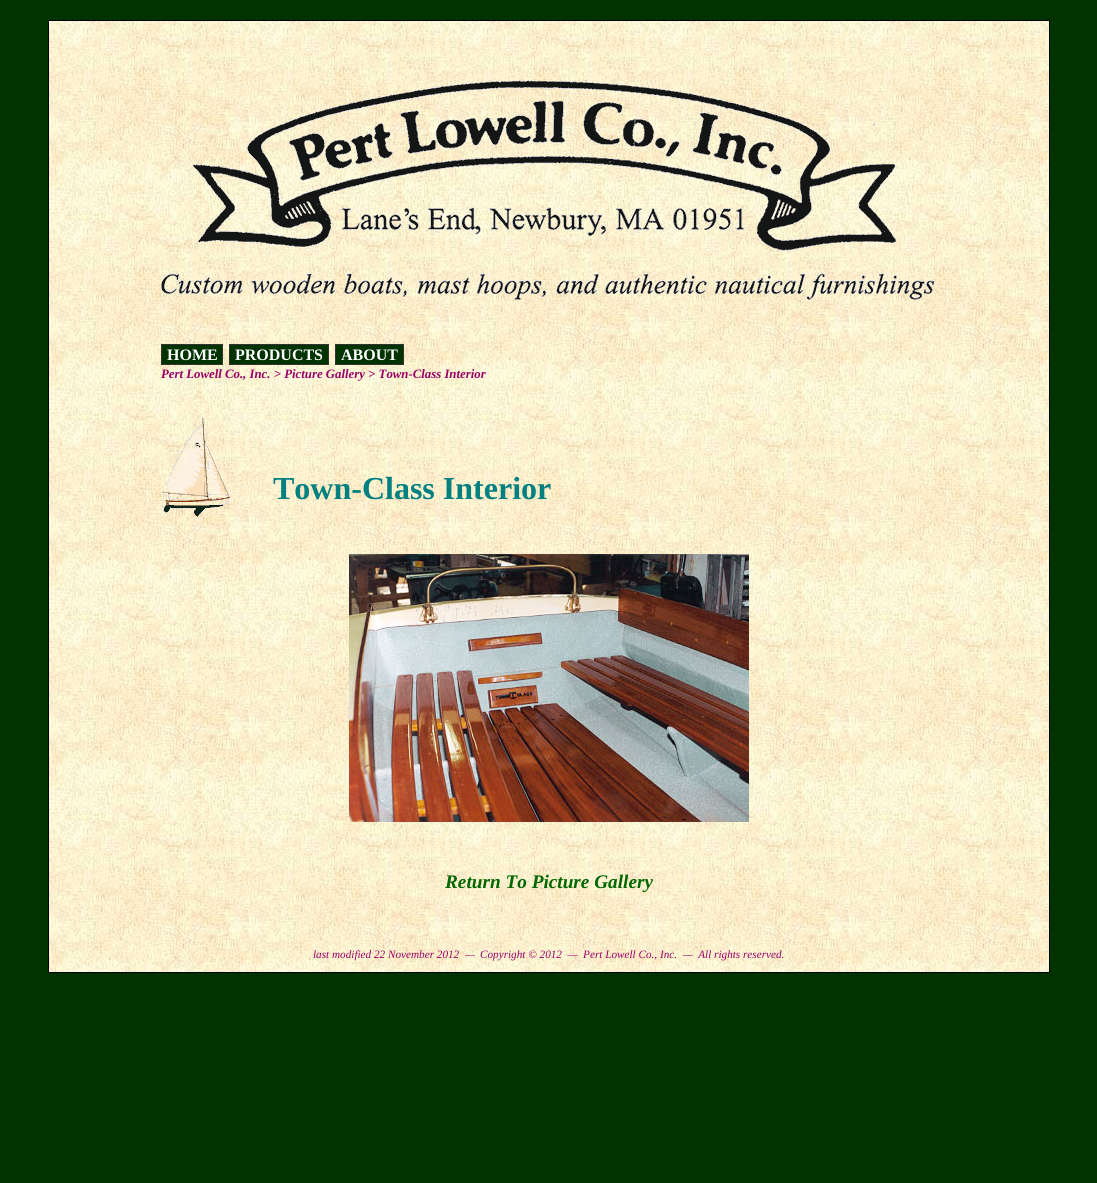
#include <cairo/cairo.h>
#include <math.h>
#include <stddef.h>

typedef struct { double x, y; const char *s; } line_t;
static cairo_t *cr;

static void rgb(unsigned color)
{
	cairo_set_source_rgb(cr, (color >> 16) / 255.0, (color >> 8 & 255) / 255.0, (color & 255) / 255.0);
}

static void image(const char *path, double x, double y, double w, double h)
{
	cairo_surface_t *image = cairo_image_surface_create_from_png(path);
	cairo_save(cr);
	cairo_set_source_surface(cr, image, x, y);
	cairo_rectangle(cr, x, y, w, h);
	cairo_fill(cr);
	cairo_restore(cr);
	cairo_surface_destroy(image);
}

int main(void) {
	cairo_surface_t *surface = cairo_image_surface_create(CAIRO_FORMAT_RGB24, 1097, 1183);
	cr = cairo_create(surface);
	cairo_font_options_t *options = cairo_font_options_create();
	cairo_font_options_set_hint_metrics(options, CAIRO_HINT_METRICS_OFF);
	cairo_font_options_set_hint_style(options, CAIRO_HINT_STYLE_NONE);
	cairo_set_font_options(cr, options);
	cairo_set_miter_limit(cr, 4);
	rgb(0x003300);
	cairo_paint(cr);
	image("img/1.png", 49, 21, 1000, 951);
	cairo_rectangle(cr, 48.5, 20.5, 1001, 952);
	rgb(0x000000);
	cairo_set_line_width(cr, 1);
	cairo_stroke(cr);
	image("img/2.png", 161, 80, 774, 220);
	rgb(0x003300);
	cairo_rectangle(cr, 161.5, 344.5, 61, 20);
	cairo_fill_preserve(cr);
	rgb(0x333333);
	cairo_stroke(cr);
	rgb(0x003300);
	cairo_rectangle(cr, 229.5, 344.5, 99, 20);
	cairo_fill_preserve(cr);
	rgb(0x333333);
	cairo_stroke(cr);
	rgb(0x003300);
	cairo_rectangle(cr, 335.5, 344.5, 68, 20);
	cairo_fill_preserve(cr);
	rgb(0x333333);
	cairo_stroke(cr);
	image("img/3.png", 161, 417, 69, 100);
	image("img/4.png", 349, 554, 400, 268);
	cairo_select_font_face(cr, "Liberation Serif", CAIRO_FONT_SLANT_NORMAL, CAIRO_FONT_WEIGHT_BOLD);
	cairo_set_font_size(cr, 16);
	rgb(0xffffff);
	{
		static const line_t items[] = {
			{167, 360, "HOME"},
			{235, 360, "PRODUCTS"},
			{341, 360, "ABOUT"},
		};
		for (size_t i = 0; i < sizeof items / sizeof *items; i++) {
			cairo_move_to(cr, items[i].x, items[i].y);
			cairo_show_text(cr, items[i].s);
		}
	}
	cairo_select_font_face(cr, "Liberation Serif", CAIRO_FONT_SLANT_ITALIC, CAIRO_FONT_WEIGHT_BOLD);
	cairo_set_font_size(cr, 12.8);
	rgb(0x990066);
	cairo_move_to(cr, 161, 378);
	cairo_show_text(cr, "Pert Lowell Co., Inc. > Picture Gallery > Town-Class Interior");
	cairo_select_font_face(cr, "Liberation Serif", CAIRO_FONT_SLANT_NORMAL, CAIRO_FONT_WEIGHT_BOLD);
	cairo_set_font_size(cr, 32);
	rgb(0x008080);
	cairo_move_to(cr, 273, 499);
	cairo_show_text(cr, "Town-Class Interior");
	cairo_select_font_face(cr, "Liberation Serif", CAIRO_FONT_SLANT_ITALIC, CAIRO_FONT_WEIGHT_BOLD);
	cairo_set_font_size(cr, 19.25);
	rgb(0x006600);
	cairo_move_to(cr, 445, 888);
	cairo_show_text(cr, "Return To Picture Gallery");
	cairo_select_font_face(cr, "Liberation Serif", CAIRO_FONT_SLANT_ITALIC, CAIRO_FONT_WEIGHT_NORMAL);
	cairo_set_font_size(cr, 11.2);
	rgb(0x990066);
	{
		static const line_t items[] = {
			{313, 958, "last modified 22 November 2012"},
			{465, 958, "—"},
			{480, 958, "Copyright © 2012  —  Pert Lowell Co., Inc.  —  All rights reserved."},
		};
		for (size_t i = 0; i < sizeof items / sizeof *items; i++) {
			cairo_move_to(cr, items[i].x, items[i].y);
			cairo_show_text(cr, items[i].s);
		}
	}
	cairo_surface_write_to_png(surface, "page.png");
	cairo_font_options_destroy(options);
	cairo_destroy(cr);
	cairo_surface_destroy(surface);
	return 0;
}
